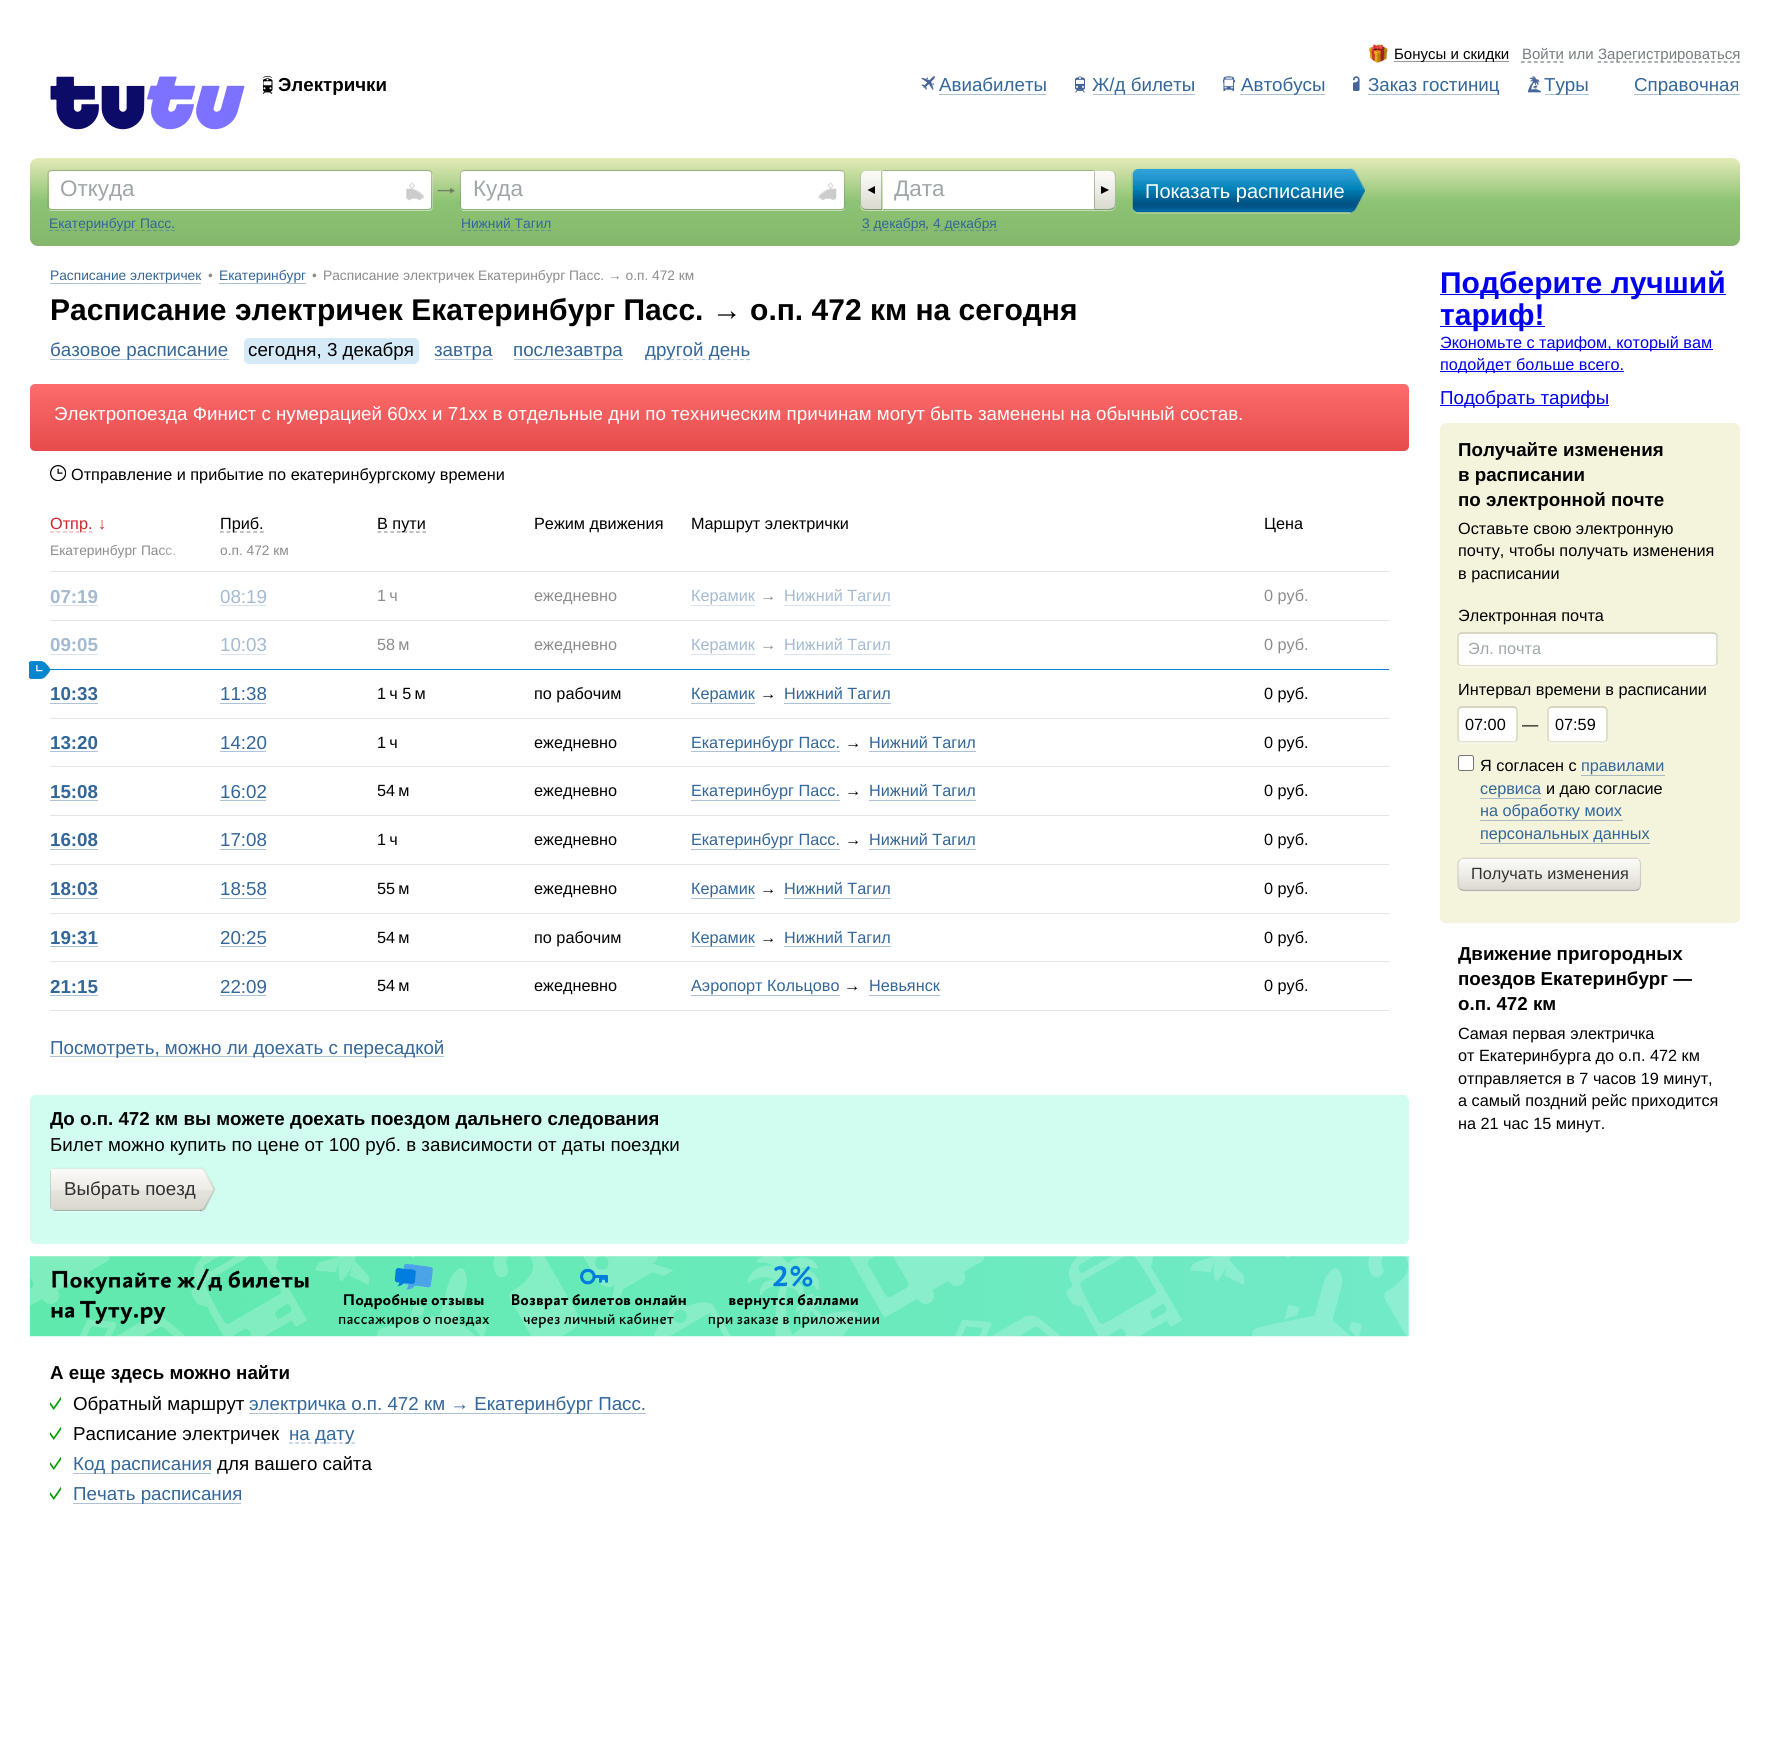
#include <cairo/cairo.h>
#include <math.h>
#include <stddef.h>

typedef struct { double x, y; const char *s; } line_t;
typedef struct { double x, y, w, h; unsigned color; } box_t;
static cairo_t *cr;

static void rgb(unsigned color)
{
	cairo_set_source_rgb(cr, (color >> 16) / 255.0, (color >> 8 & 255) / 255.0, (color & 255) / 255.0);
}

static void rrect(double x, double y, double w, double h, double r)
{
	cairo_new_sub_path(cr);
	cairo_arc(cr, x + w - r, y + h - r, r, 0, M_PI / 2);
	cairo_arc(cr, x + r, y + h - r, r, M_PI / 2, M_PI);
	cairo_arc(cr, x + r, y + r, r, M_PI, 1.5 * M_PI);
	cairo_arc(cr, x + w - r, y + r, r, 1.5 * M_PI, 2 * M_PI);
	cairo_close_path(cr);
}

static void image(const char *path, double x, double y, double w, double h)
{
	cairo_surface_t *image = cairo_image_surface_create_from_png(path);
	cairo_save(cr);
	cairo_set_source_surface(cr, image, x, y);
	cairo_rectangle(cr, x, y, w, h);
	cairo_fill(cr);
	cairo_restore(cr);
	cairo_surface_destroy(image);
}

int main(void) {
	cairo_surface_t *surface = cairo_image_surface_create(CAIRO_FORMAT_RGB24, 1769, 1744);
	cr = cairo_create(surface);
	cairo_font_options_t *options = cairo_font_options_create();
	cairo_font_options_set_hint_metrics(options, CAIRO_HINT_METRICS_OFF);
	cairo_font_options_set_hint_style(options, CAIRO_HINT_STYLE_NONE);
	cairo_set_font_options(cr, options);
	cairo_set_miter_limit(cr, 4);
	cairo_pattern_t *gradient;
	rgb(0xffffff);
	cairo_paint(cr);
	rgb(0x999999);
	cairo_rectangle(cr, 1394, 61, 115, 1);
	cairo_fill(cr);
	image("img/1.png", 1368, 44, 20, 19);
	cairo_new_path(cr);
	cairo_move_to(cr, 1521, 62);
	cairo_line_to(cr, 1564, 62);
	rgb(0x777e80);
	cairo_set_line_width(cr, 1.2);
	cairo_set_dash(cr, (double[]){3.75, 2.71}, 2, 0);
	cairo_stroke(cr);
	cairo_new_path(cr);
	cairo_move_to(cr, 1597.5, 62);
	cairo_line_to(cr, 1740, 62);
	cairo_set_dash(cr, (double[]){3.75, 2.56}, 2, 0);
	cairo_stroke(cr);
	image("img/2.png", 50, 76, 195, 54);
	image("img/3.png", 263, 76, 10, 18);
	image("img/4.png", 921, 76, 14, 14);
	rgb(0xadc2d6);
	cairo_rectangle(cr, 939, 94, 107, 1);
	cairo_fill(cr);
	image("img/5.png", 1075, 76, 10, 17);
	cairo_rectangle(cr, 1093, 94, 102, 1);
	cairo_fill(cr);
	image("img/6.png", 1223, 76, 12, 15);
	cairo_rectangle(cr, 1240, 94, 85, 1);
	cairo_fill(cr);
	image("img/7.png", 1353, 76, 7, 15);
	cairo_rectangle(cr, 1368, 94, 131, 1);
	cairo_fill(cr);
	image("img/8.png", 1528, 76, 13, 17);
	cairo_rectangle(cr, 1545, 94, 44, 1);
	cairo_fill(cr);
	cairo_rectangle(cr, 1634, 94, 106, 1);
	cairo_fill(cr);
	gradient = cairo_pattern_create_linear(885, 157, 885, 246);
	cairo_pattern_add_color_stop_rgba(gradient, 0, 0.902, 0.922, 0.725, 1);
	cairo_pattern_add_color_stop_rgba(gradient, 0.5, 0.553, 0.765, 0.455, 1);
	cairo_pattern_add_color_stop_rgba(gradient, 1, 0.518, 0.718, 0.424, 1);
	cairo_set_source(cr, gradient);
	cairo_pattern_destroy(gradient);
	rrect(30, 158, 1710, 88, 8);
	cairo_fill(cr);
	gradient = cairo_pattern_create_linear(885, 157, 885, 246);
	cairo_pattern_add_color_stop_rgba(gradient, 0, 0.796, 0.804, 0.698, 1);
	cairo_pattern_add_color_stop_rgba(gradient, 0.5, 0.624, 0.725, 0.565, 1);
	cairo_pattern_add_color_stop_rgba(gradient, 1, 0.604, 0.702, 0.549, 1);
	cairo_set_source(cr, gradient);
	cairo_pattern_destroy(gradient);
	cairo_rectangle(cr, 1131, 173, 1, 37);
	cairo_fill(cr);
	cairo_set_source_rgba(cr, 1, 1, 1, 0.5);
	cairo_new_path(cr);
	cairo_move_to(cr, 48, 209);
	cairo_curve_to(cr, 49, 210, 50, 211, 52, 211);
	cairo_line_to(cr, 429, 211);
	cairo_curve_to(cr, 431, 211, 433, 209, 433, 207);
	cairo_line_to(cr, 433, 175);
	cairo_line_to(cr, 432, 173);
	cairo_line_to(cr, 432, 206);
	cairo_curve_to(cr, 432, 208, 431, 210, 429, 210);
	cairo_line_to(cr, 51, 210);
	cairo_curve_to(cr, 50, 210, 49, 209, 48, 209);
	cairo_close_path(cr);
	cairo_fill(cr);
	rgb(0xffffff);
	rrect(49, 171, 382, 38, 2.5);
	cairo_fill(cr);
	cairo_new_path(cr);
	cairo_move_to(cr, 49, 171.5);
	cairo_line_to(cr, 51, 170.5);
	cairo_line_to(cr, 429, 170.5);
	cairo_line_to(cr, 431, 171.5);
	cairo_set_source_rgba(cr, 0.004, 0.004, 0.004, 0.2);
	cairo_set_dash(cr, NULL, 0, 0);
	cairo_stroke(cr);
	cairo_new_path(cr);
	cairo_move_to(cr, 431, 171.5);
	cairo_curve_to(cr, 431.5, 172, 432, 173, 432, 174);
	cairo_line_to(cr, 432, 206);
	cairo_curve_to(cr, 432, 207, 431.5, 208, 431, 208.5);
	cairo_set_source_rgba(cr, 0.298, 0.298, 0.298, 0.2);
	cairo_stroke(cr);
	cairo_new_path(cr);
	cairo_move_to(cr, 431, 208.5);
	cairo_line_to(cr, 429, 209.5);
	cairo_line_to(cr, 51, 209.5);
	cairo_line_to(cr, 49, 208.5);
	cairo_set_source_rgba(cr, 0.561, 0.561, 0.561, 0.2);
	cairo_stroke(cr);
	cairo_new_path(cr);
	cairo_move_to(cr, 49, 208.5);
	cairo_curve_to(cr, 48.5, 208, 48, 207, 48, 206);
	cairo_line_to(cr, 48, 174);
	cairo_curve_to(cr, 48, 173, 48.5, 172, 49, 171.5);
	cairo_set_source_rgba(cr, 0.298, 0.298, 0.298, 0.2);
	cairo_stroke(cr);
	image("img/9.png", 406, 182, 18, 19);
	cairo_new_path(cr);
	cairo_move_to(cr, 49, 230.5);
	cairo_line_to(cr, 175, 230.5);
	rgb(0x659980);
	cairo_set_dash(cr, (double[]){3.75, 2.38}, 2, 0);
	cairo_stroke(cr);
	image("img/10.png", 437, 187, 18, 7);
	rgb(0xc5e0b9);
	cairo_new_path(cr);
	cairo_move_to(cr, 460, 206);
	cairo_line_to(cr, 460, 207);
	cairo_curve_to(cr, 460, 209, 462, 211, 464, 211);
	cairo_line_to(cr, 841, 211);
	cairo_curve_to(cr, 843, 211, 845, 209, 845, 207);
	cairo_line_to(cr, 845, 206);
	cairo_curve_to(cr, 845, 208, 843, 210, 841, 210);
	cairo_line_to(cr, 464, 210);
	cairo_curve_to(cr, 462, 210, 460, 208, 460, 206);
	cairo_close_path(cr);
	cairo_fill(cr);
	rgb(0xffffff);
	rrect(461, 171, 383, 38, 2.5);
	cairo_fill(cr);
	cairo_new_path(cr);
	cairo_move_to(cr, 461.5, 171.5);
	cairo_line_to(cr, 464, 170.5);
	cairo_line_to(cr, 841, 170.5);
	cairo_line_to(cr, 843.5, 171.5);
	cairo_set_source_rgba(cr, 0.004, 0.004, 0.004, 0.2);
	cairo_set_dash(cr, NULL, 0, 0);
	cairo_stroke(cr);
	cairo_new_path(cr);
	cairo_move_to(cr, 843.5, 171.5);
	cairo_curve_to(cr, 844, 172, 844.5, 173, 844.5, 174);
	cairo_line_to(cr, 844.5, 206);
	cairo_curve_to(cr, 844.5, 207, 844, 208, 843.5, 208.5);
	cairo_set_source_rgba(cr, 0.298, 0.298, 0.298, 0.2);
	cairo_stroke(cr);
	cairo_new_path(cr);
	cairo_move_to(cr, 843.5, 208.5);
	cairo_line_to(cr, 841, 209.5);
	cairo_line_to(cr, 464, 209.5);
	cairo_line_to(cr, 461.5, 208.5);
	cairo_set_source_rgba(cr, 0.561, 0.561, 0.561, 0.2);
	cairo_stroke(cr);
	cairo_new_path(cr);
	cairo_move_to(cr, 461.5, 208.5);
	cairo_curve_to(cr, 461, 208, 460.5, 207, 460.5, 206);
	cairo_line_to(cr, 460.5, 174);
	cairo_curve_to(cr, 460.5, 173, 461, 172, 461.5, 171.5);
	cairo_set_source_rgba(cr, 0.298, 0.298, 0.298, 0.2);
	cairo_stroke(cr);
	image("img/11.png", 818, 182, 19, 19);
	cairo_new_path(cr);
	cairo_move_to(cr, 461, 230.5);
	cairo_line_to(cr, 551, 230.5);
	rgb(0x659980);
	cairo_set_dash(cr, (double[]){3.75, 2.41}, 2, 0);
	cairo_stroke(cr);
	cairo_set_source_rgba(cr, 1, 1, 1, 0.5);
	cairo_new_path(cr);
	cairo_move_to(cr, 860, 204);
	cairo_curve_to(cr, 860, 212, 865, 211, 872, 211);
	cairo_line_to(cr, 883, 211);
	cairo_line_to(cr, 883, 171);
	cairo_line_to(cr, 882, 171);
	cairo_line_to(cr, 882, 210);
	cairo_line_to(cr, 866, 210);
	cairo_curve_to(cr, 863, 210, 860, 207, 860, 204);
	cairo_close_path(cr);
	cairo_fill(cr);
	gradient = cairo_pattern_create_linear(871, 171, 871, 209);
	cairo_pattern_add_color_stop_rgba(gradient, 0, 0.984, 0.984, 0.976, 1);
	cairo_pattern_add_color_stop_rgba(gradient, 0.5, 0.929, 0.925, 0.902, 1);
	cairo_pattern_add_color_stop_rgba(gradient, 1, 0.855, 0.847, 0.812, 1);
	cairo_set_source(cr, gradient);
	cairo_pattern_destroy(gradient);
	cairo_new_path(cr);
	cairo_move_to(cr, 866, 171);
	cairo_line_to(cr, 881, 171);
	cairo_line_to(cr, 881, 209);
	cairo_line_to(cr, 866, 209);
	cairo_curve_to(cr, 863, 209, 861, 207, 861, 204);
	cairo_line_to(cr, 861, 176);
	cairo_curve_to(cr, 861, 173, 863, 171, 866, 171);
	cairo_close_path(cr);
	cairo_fill(cr);
	cairo_set_source_rgba(cr, 0.812, 0.808, 0.788, 0.5);
	cairo_new_path(cr);
	cairo_move_to(cr, 866, 170);
	cairo_curve_to(cr, 864.5, 170, 863, 171, 862, 172);
	cairo_line_to(cr, 862.5, 172.5);
	cairo_curve_to(cr, 863, 171.5, 864.5, 171, 866, 171);
	cairo_line_to(cr, 881, 171);
	cairo_line_to(cr, 881, 171.5);
	cairo_line_to(cr, 882, 170.5);
	cairo_line_to(cr, 882, 170);
	cairo_close_path(cr);
	cairo_fill(cr);
	cairo_set_source_rgba(cr, 0.69, 0.686, 0.671, 0.5);
	cairo_new_path(cr);
	cairo_move_to(cr, 882, 170.5);
	cairo_line_to(cr, 882, 209.5);
	cairo_line_to(cr, 881, 208.5);
	cairo_line_to(cr, 881, 171.5);
	cairo_close_path(cr);
	cairo_fill(cr);
	cairo_set_source_rgba(cr, 0.431, 0.431, 0.431, 0.5);
	cairo_new_path(cr);
	cairo_move_to(cr, 866, 210);
	cairo_line_to(cr, 882, 210);
	cairo_line_to(cr, 882, 209.5);
	cairo_line_to(cr, 881, 208.5);
	cairo_line_to(cr, 881, 209);
	cairo_line_to(cr, 866, 209);
	cairo_curve_to(cr, 864.5, 209, 863, 208.5, 862.5, 207.5);
	cairo_line_to(cr, 862, 208);
	cairo_curve_to(cr, 863, 209, 864.5, 210, 866, 210);
	cairo_close_path(cr);
	cairo_fill(cr);
	cairo_set_source_rgba(cr, 0.69, 0.686, 0.671, 0.5);
	cairo_new_path(cr);
	cairo_move_to(cr, 860, 176);
	cairo_line_to(cr, 860, 204);
	cairo_curve_to(cr, 860, 205.5, 861, 207, 862, 208);
	cairo_line_to(cr, 862.5, 207.5);
	cairo_curve_to(cr, 861.5, 207, 861, 205.5, 861, 204);
	cairo_line_to(cr, 861, 176);
	cairo_curve_to(cr, 861, 174.5, 861.5, 173, 862.5, 172.5);
	cairo_line_to(cr, 862, 172);
	cairo_curve_to(cr, 861, 173, 860, 174.5, 860, 176);
	cairo_close_path(cr);
	cairo_fill(cr);
	rgb(0x000000);
	cairo_new_path(cr);
	cairo_move_to(cr, 875, 186);
	cairo_line_to(cr, 875, 194);
	cairo_line_to(cr, 867.5, 190);
	cairo_close_path(cr);
	cairo_fill(cr);
	rgb(0xc5e0b9);
	cairo_new_path(cr);
	cairo_move_to(cr, 883, 210);
	cairo_line_to(cr, 883, 211);
	cairo_line_to(cr, 1094, 211);
	cairo_line_to(cr, 1094, 171);
	cairo_line_to(cr, 1094, 210);
	cairo_close_path(cr);
	cairo_fill(cr);
	{
		static const box_t items[] = {
			{883, 171, 211, 38, 0xffffff},
			{883, 170, 211, 1, 0xa3b383},
			{883, 209, 211, 1, 0x8cb779},
		};
		for (size_t i = 0; i < sizeof items / sizeof *items; i++) {
			rgb(items[i].color);
			cairo_rectangle(cr, items[i].x, items[i].y, items[i].w, items[i].h);
			cairo_fill(cr);
		}
	}
	rgb(0xc5e0b9);
	cairo_new_path(cr);
	cairo_move_to(cr, 1094, 210);
	cairo_line_to(cr, 1094, 211);
	cairo_line_to(cr, 1110, 211);
	cairo_curve_to(cr, 1113, 211, 1115.5, 208.5, 1116, 205.5);
	cairo_curve_to(cr, 1115, 208, 1113, 210, 1110, 210);
	cairo_close_path(cr);
	cairo_fill(cr);
	gradient = cairo_pattern_create_linear(1105, 171, 1105, 209);
	cairo_pattern_add_color_stop_rgba(gradient, 0, 0.984, 0.984, 0.976, 1);
	cairo_pattern_add_color_stop_rgba(gradient, 0.5, 0.929, 0.925, 0.902, 1);
	cairo_pattern_add_color_stop_rgba(gradient, 1, 0.855, 0.847, 0.812, 1);
	cairo_set_source(cr, gradient);
	cairo_pattern_destroy(gradient);
	cairo_new_path(cr);
	cairo_move_to(cr, 1095, 171);
	cairo_line_to(cr, 1110, 171);
	cairo_curve_to(cr, 1113, 171, 1115, 173, 1115, 176);
	cairo_line_to(cr, 1115, 204);
	cairo_curve_to(cr, 1115, 207, 1113, 209, 1110, 209);
	cairo_line_to(cr, 1095, 209);
	cairo_close_path(cr);
	cairo_fill(cr);
	cairo_set_source_rgba(cr, 0.812, 0.808, 0.788, 0.5);
	cairo_new_path(cr);
	cairo_move_to(cr, 1094, 170);
	cairo_line_to(cr, 1095, 171);
	cairo_curve_to(cr, 1098.5, 171, 1111, 169.5, 1113.5, 173);
	cairo_line_to(cr, 1114, 172);
	cairo_curve_to(cr, 1113, 171, 1111.5, 170, 1110, 170);
	cairo_close_path(cr);
	cairo_fill(cr);
	cairo_set_source_rgba(cr, 0.69, 0.686, 0.671, 0.5);
	cairo_new_path(cr);
	cairo_move_to(cr, 1114, 172);
	cairo_curve_to(cr, 1115.5, 173, 1116, 174.5, 1116, 176);
	cairo_line_to(cr, 1116, 204);
	cairo_curve_to(cr, 1116, 205.5, 1115.5, 207, 1114, 208);
	cairo_line_to(cr, 1113.5, 207);
	cairo_curve_to(cr, 1115, 205, 1115, 200, 1115, 190);
	cairo_curve_to(cr, 1115, 180, 1115, 175, 1113.5, 173);
	cairo_close_path(cr);
	cairo_fill(cr);
	cairo_set_source_rgba(cr, 0.431, 0.431, 0.431, 0.5);
	cairo_new_path(cr);
	cairo_move_to(cr, 1094, 210);
	cairo_line_to(cr, 1110, 210);
	cairo_curve_to(cr, 1111.5, 210, 1113, 209, 1114, 208);
	cairo_line_to(cr, 1113.5, 207);
	cairo_curve_to(cr, 1111, 210.5, 1098.5, 209, 1095, 209);
	cairo_close_path(cr);
	cairo_fill(cr);
	cairo_set_source_rgba(cr, 0.69, 0.686, 0.671, 0.5);
	cairo_new_path(cr);
	cairo_move_to(cr, 1094, 170);
	cairo_line_to(cr, 1094, 210);
	cairo_line_to(cr, 1095, 209);
	cairo_line_to(cr, 1095, 171);
	cairo_close_path(cr);
	cairo_fill(cr);
	rgb(0x000000);
	cairo_new_path(cr);
	cairo_move_to(cr, 1101, 194);
	cairo_line_to(cr, 1101, 186);
	cairo_line_to(cr, 1109, 190);
	cairo_close_path(cr);
	cairo_fill(cr);
	cairo_new_path(cr);
	cairo_move_to(cr, 861, 230.5);
	cairo_line_to(cr, 925, 230.5);
	rgb(0x659980);
	cairo_set_dash(cr, (double[]){3.75, 2.25}, 2, 0);
	cairo_stroke(cr);
	cairo_new_path(cr);
	cairo_move_to(cr, 934, 230.5);
	cairo_line_to(cr, 997.5, 230.5);
	cairo_stroke(cr);
	rgb(0xa8d095);
	cairo_new_path(cr);
	cairo_move_to(cr, 1133, 209);
	cairo_curve_to(cr, 1133, 212, 1136, 214, 1139, 214);
	cairo_line_to(cr, 1351, 214);
	cairo_line_to(cr, 1351, 212);
	cairo_line_to(cr, 1139, 212);
	cairo_curve_to(cr, 1136, 212, 1134, 211, 1133, 209);
	cairo_close_path(cr);
	cairo_fill(cr);
	image("img/12.png", 1132, 168, 220, 45);
	image("img/13.png", 1350, 168, 15, 45);
	{
		static const box_t items[] = {
			{50, 283, 151, 1, 0xadc2d6},
			{219, 283, 87, 1, 0xadc2d6},
			{50, 359, 179, 1, 0xadc2d6},
		};
		for (size_t i = 0; i < sizeof items / sizeof *items; i++) {
			rgb(items[i].color);
			cairo_rectangle(cr, items[i].x, items[i].y, items[i].w, items[i].h);
			cairo_fill(cr);
		}
	}
	rgb(0xd4ebf7);
	rrect(244, 338, 175, 26, 5);
	cairo_fill(cr);
	rgb(0xadc2d6);
	cairo_rectangle(cr, 435, 359, 58, 1);
	cairo_fill(cr);
	cairo_rectangle(cr, 514, 359, 109, 1);
	cairo_fill(cr);
	cairo_new_path(cr);
	cairo_move_to(cr, 645, 359.5);
	cairo_line_to(cr, 750, 359.5);
	cairo_set_dash(cr, (double[]){3.75, 2.58}, 2, 0);
	cairo_stroke(cr);
	gradient = cairo_pattern_create_linear(719, 384, 719, 451);
	cairo_pattern_add_color_stop_rgba(gradient, 0, 0.992, 0.424, 0.424, 1);
	cairo_pattern_add_color_stop_rgba(gradient, 1, 0.902, 0.294, 0.294, 1);
	cairo_set_source(cr, gradient);
	cairo_pattern_destroy(gradient);
	rrect(30, 384, 1379, 67, 5);
	cairo_fill(cr);
	image("img/14.png", 50, 465, 16, 16);
	rgb(0xe5e5e5);
	cairo_rectangle(cr, 50, 571, 1339, 1);
	cairo_fill(cr);
	cairo_new_path(cr);
	cairo_move_to(cr, 50, 532);
	cairo_line_to(cr, 92.5, 532);
	rgb(0xeba8a9);
	cairo_set_dash(cr, (double[]){3.75, 2.71}, 2, 0);
	cairo_stroke(cr);
	cairo_new_path(cr);
	cairo_move_to(cr, 220, 532);
	cairo_line_to(cr, 264, 532);
	rgb(0x999999);
	cairo_set_dash(cr, (double[]){3.75, 2.91}, 2, 0);
	cairo_stroke(cr);
	cairo_new_path(cr);
	cairo_move_to(cr, 377.5, 532);
	cairo_line_to(cr, 426, 532);
	cairo_set_dash(cr, (double[]){3.75, 2.68}, 2, 0);
	cairo_stroke(cr);
	{
		static const box_t items[] = {
			{50, 620, 1339, 1, 0xe5e5e5},
			{50, 605, 48, 1, 0xdae3ed},
			{220, 605, 46, 1, 0xdae3ed},
			{691, 605, 64, 1, 0xdae3ed},
			{784, 605, 107, 1, 0xdae3ed},
			{50, 669, 1339, 1, 0x0287cf},
			{50, 654, 48, 1, 0xdae3ed},
			{220, 654, 46, 1, 0xdae3ed},
			{691, 654, 64, 1, 0xdae3ed},
			{784, 654, 107, 1, 0xdae3ed},
		};
		for (size_t i = 0; i < sizeof items / sizeof *items; i++) {
			rgb(items[i].color);
			cairo_rectangle(cr, items[i].x, items[i].y, items[i].w, items[i].h);
			cairo_fill(cr);
		}
	}
	image("img/15.png", 29, 661, 21, 18);
	{
		static const box_t items[] = {
			{50, 718, 1339, 1, 0xe5e5e5},
			{50, 703, 48, 1, 0xadc2d6},
			{220, 703, 46, 1, 0xadc2d6},
			{691, 703, 64, 1, 0xadc2d6},
			{784, 703, 107, 1, 0xadc2d6},
			{50, 766, 1339, 1, 0xe5e5e5},
			{50, 751, 48, 1, 0xadc2d6},
			{220, 751, 46, 1, 0xadc2d6},
			{691, 751, 149, 1, 0xadc2d6},
			{869, 751, 107, 1, 0xadc2d6},
			{50, 815, 1339, 1, 0xe5e5e5},
			{50, 800, 48, 1, 0xadc2d6},
			{220, 800, 46, 1, 0xadc2d6},
			{691, 800, 149, 1, 0xadc2d6},
			{869, 800, 107, 1, 0xadc2d6},
			{50, 864, 1339, 1, 0xe5e5e5},
			{50, 849, 48, 1, 0xadc2d6},
			{220, 849, 46, 1, 0xadc2d6},
			{691, 849, 149, 1, 0xadc2d6},
			{869, 849, 107, 1, 0xadc2d6},
			{50, 913, 1339, 1, 0xe5e5e5},
			{50, 898, 48, 1, 0xadc2d6},
			{220, 898, 46, 1, 0xadc2d6},
			{691, 898, 64, 1, 0xadc2d6},
			{784, 898, 107, 1, 0xadc2d6},
			{50, 961, 1339, 1, 0xe5e5e5},
			{50, 946, 48, 1, 0xadc2d6},
			{220, 946, 46, 1, 0xadc2d6},
			{691, 946, 64, 1, 0xadc2d6},
			{784, 946, 107, 1, 0xadc2d6},
			{50, 1010, 1339, 1, 0xe5e5e5},
			{50, 995, 48, 1, 0xadc2d6},
			{220, 995, 46, 1, 0xadc2d6},
			{691, 995, 149, 1, 0xadc2d6},
			{869, 995, 71, 1, 0xadc2d6},
			{50, 1056, 394, 1, 0xadc2d6},
		};
		for (size_t i = 0; i < sizeof items / sizeof *items; i++) {
			rgb(items[i].color);
			cairo_rectangle(cr, items[i].x, items[i].y, items[i].w, items[i].h);
			cairo_fill(cr);
		}
	}
	rgb(0xd0fdef);
	rrect(30, 1095, 1379, 149, 6);
	cairo_fill(cr);
	rgb(0xdcfef3);
	cairo_new_path(cr);
	cairo_move_to(cr, 50, 1205);
	cairo_line_to(cr, 50, 1207);
	cairo_curve_to(cr, 50, 1210, 53, 1213, 56, 1213);
	cairo_line_to(cr, 201, 1213);
	cairo_line_to(cr, 201, 1211);
	cairo_line_to(cr, 56, 1211);
	cairo_curve_to(cr, 53, 1211, 50, 1208, 50, 1205);
	cairo_close_path(cr);
	cairo_fill(cr);
	image("img/16.png", 50, 1167, 152, 44);
	cairo_set_source_rgba(cr, 0.69, 0.686, 0.671, 0.5);
	cairo_rectangle(cr, 50, 1171, 1, 38);
	cairo_fill(cr);
	image("img/17.png", 200, 1167, 15, 45);
	image("img/18.png", 30, 1256, 1379, 81);
	image("img/19.png", 50, 1396, 11, 14);
	rgb(0xadc2d6);
	cairo_rectangle(cr, 249, 1413, 397, 1);
	cairo_fill(cr);
	image("img/19.png", 50, 1426, 11, 14);
	cairo_new_path(cr);
	cairo_move_to(cr, 289, 1443);
	cairo_line_to(cr, 355, 1443);
	cairo_set_dash(cr, (double[]){3.75, 2.5}, 2, 0);
	cairo_stroke(cr);
	image("img/19.png", 50, 1456, 11, 14);
	cairo_rectangle(cr, 73, 1473, 138, 1);
	cairo_fill(cr);
	image("img/19.png", 50, 1486, 11, 14);
	{
		static const box_t items[] = {
			{73, 1503, 168, 1, 0xadc2d6},
			{1440, 294, 286, 1, 0x0000ee},
			{1440, 326, 105, 1, 0x0000ee},
			{1440, 349, 273, 1, 0x0000ee},
			{1440, 371, 184, 1, 0x0000ee},
			{1440, 405, 169, 1, 0x0000ee},
		};
		for (size_t i = 0; i < sizeof items / sizeof *items; i++) {
			rgb(items[i].color);
			cairo_rectangle(cr, items[i].x, items[i].y, items[i].w, items[i].h);
			cairo_fill(cr);
		}
	}
	rgb(0xf4f3db);
	rrect(1440, 423, 300, 500, 6);
	cairo_fill(cr);
	rgb(0xfaf9ed);
	cairo_new_path(cr);
	cairo_move_to(cr, 1458, 664);
	cairo_curve_to(cr, 1458, 666, 1460, 668, 1462, 668);
	cairo_line_to(cr, 1714, 668);
	cairo_curve_to(cr, 1716, 668, 1718, 666, 1718, 664);
	cairo_line_to(cr, 1718, 638);
	cairo_line_to(cr, 1717, 636);
	cairo_line_to(cr, 1718, 662);
	cairo_curve_to(cr, 1718, 665, 1716, 666, 1714, 666);
	cairo_line_to(cr, 1461, 666);
	cairo_curve_to(cr, 1460, 666, 1459, 666, 1458, 664);
	cairo_close_path(cr);
	cairo_fill(cr);
	rgb(0xffffff);
	rrect(1459, 634, 257, 31, 2.5);
	cairo_fill(cr);
	cairo_new_path(cr);
	cairo_move_to(cr, 1459, 634);
	cairo_line_to(cr, 1461, 633);
	cairo_line_to(cr, 1714, 633);
	cairo_line_to(cr, 1716, 634);
	rgb(0xc3c3af);
	cairo_set_dash(cr, NULL, 0, 0);
	cairo_stroke(cr);
	cairo_new_path(cr);
	cairo_move_to(cr, 1716, 634);
	cairo_curve_to(cr, 1716.5, 634.5, 1717, 635.5, 1717, 636);
	cairo_line_to(cr, 1717, 662.5);
	cairo_curve_to(cr, 1717, 663.5, 1716.5, 664, 1716, 664.5);
	cairo_set_source_rgba(cr, 0.298, 0.298, 0.298, 0.2);
	cairo_stroke(cr);
	cairo_new_path(cr);
	cairo_move_to(cr, 1716, 664.5);
	cairo_line_to(cr, 1714, 665.5);
	cairo_line_to(cr, 1461, 665.5);
	cairo_line_to(cr, 1459, 664.5);
	cairo_set_source_rgba(cr, 0.561, 0.561, 0.561, 0.2);
	cairo_stroke(cr);
	cairo_new_path(cr);
	cairo_move_to(cr, 1459, 664.5);
	cairo_curve_to(cr, 1458.5, 664, 1458, 663.5, 1458, 662.5);
	cairo_line_to(cr, 1458, 636);
	cairo_curve_to(cr, 1458, 635.5, 1458.5, 634.5, 1459, 634);
	cairo_set_source_rgba(cr, 0.298, 0.298, 0.298, 0.2);
	cairo_stroke(cr);
	rgb(0xfaf9ed);
	cairo_new_path(cr);
	cairo_move_to(cr, 1458, 741);
	cairo_curve_to(cr, 1458, 743, 1460, 744, 1462, 744);
	cairo_line_to(cr, 1514, 744);
	cairo_curve_to(cr, 1516, 744, 1518, 742, 1518, 740);
	cairo_line_to(cr, 1518, 712);
	cairo_line_to(cr, 1518, 710);
	cairo_line_to(cr, 1518, 739);
	cairo_curve_to(cr, 1518, 741, 1516, 742, 1514, 742);
	cairo_line_to(cr, 1461, 742);
	cairo_curve_to(cr, 1460, 742, 1459, 742, 1458, 741);
	cairo_close_path(cr);
	cairo_fill(cr);
	rgb(0xffffff);
	rrect(1459, 708, 57, 33, 2.5);
	cairo_fill(cr);
	cairo_new_path(cr);
	cairo_move_to(cr, 1459, 708);
	cairo_line_to(cr, 1461, 707);
	cairo_line_to(cr, 1514, 707);
	cairo_line_to(cr, 1516, 708);
	rgb(0xc3c3af);
	cairo_stroke(cr);
	cairo_new_path(cr);
	cairo_move_to(cr, 1516, 708);
	cairo_curve_to(cr, 1516.5, 708.5, 1517, 709, 1517, 710);
	cairo_line_to(cr, 1517, 739);
	cairo_curve_to(cr, 1517, 739.5, 1516.5, 740.5, 1516, 741);
	rgb(0xd2d2be);
	cairo_stroke(cr);
	cairo_new_path(cr);
	cairo_move_to(cr, 1516, 741);
	cairo_line_to(cr, 1514, 742);
	cairo_line_to(cr, 1461, 742);
	cairo_line_to(cr, 1459, 741);
	cairo_set_source_rgba(cr, 0.561, 0.561, 0.561, 0.2);
	cairo_stroke(cr);
	cairo_new_path(cr);
	cairo_move_to(cr, 1459, 741);
	cairo_curve_to(cr, 1458.5, 740.5, 1458, 739.5, 1458, 739);
	cairo_line_to(cr, 1458, 710);
	cairo_curve_to(cr, 1458, 709, 1458.5, 708.5, 1459, 708);
	rgb(0xd2d2be);
	cairo_stroke(cr);
	rgb(0xfaf9ed);
	cairo_new_path(cr);
	cairo_move_to(cr, 1548, 741);
	cairo_curve_to(cr, 1548, 743, 1550, 744, 1552, 744);
	cairo_line_to(cr, 1604, 744);
	cairo_curve_to(cr, 1606, 744, 1608, 742, 1608, 740);
	cairo_line_to(cr, 1608, 712);
	cairo_line_to(cr, 1608, 710);
	cairo_line_to(cr, 1608, 739);
	cairo_curve_to(cr, 1608, 741, 1606, 742, 1604, 742);
	cairo_line_to(cr, 1551, 742);
	cairo_curve_to(cr, 1550, 742, 1549, 742, 1548, 741);
	cairo_close_path(cr);
	cairo_fill(cr);
	rgb(0xffffff);
	rrect(1549, 708, 57, 33, 2.5);
	cairo_fill(cr);
	cairo_new_path(cr);
	cairo_move_to(cr, 1549, 708);
	cairo_line_to(cr, 1551, 707);
	cairo_line_to(cr, 1604, 707);
	cairo_line_to(cr, 1606, 708);
	rgb(0xc3c3af);
	cairo_stroke(cr);
	cairo_new_path(cr);
	cairo_move_to(cr, 1606, 708);
	cairo_curve_to(cr, 1606.5, 708.5, 1607, 709, 1607, 710);
	cairo_line_to(cr, 1607, 739);
	cairo_curve_to(cr, 1607, 739.5, 1606.5, 740.5, 1606, 741);
	rgb(0xd2d2be);
	cairo_stroke(cr);
	cairo_new_path(cr);
	cairo_move_to(cr, 1606, 741);
	cairo_line_to(cr, 1604, 742);
	cairo_line_to(cr, 1551, 742);
	cairo_line_to(cr, 1549, 741);
	cairo_set_source_rgba(cr, 0.561, 0.561, 0.561, 0.2);
	cairo_stroke(cr);
	cairo_new_path(cr);
	cairo_move_to(cr, 1549, 741);
	cairo_curve_to(cr, 1548.5, 740.5, 1548, 739.5, 1548, 739);
	cairo_line_to(cr, 1548, 710);
	cairo_curve_to(cr, 1548, 709, 1548.5, 708.5, 1549, 708);
	rgb(0xd2d2be);
	cairo_stroke(cr);
	rgb(0xffffff);
	rrect(1458.5, 755.5, 15, 15, 2);
	cairo_fill_preserve(cr);
	rgb(0x767676);
	cairo_set_line_width(cr, 1);
	cairo_stroke(cr);
	{
		static const box_t items[] = {
			{1581, 775, 84, 1, 0xa7bbc1},
			{1480, 798, 61, 1, 0xa7bbc1},
			{1480, 820, 143, 1, 0xa7bbc1},
			{1480, 843, 170, 1, 0xa7bbc1},
		};
		for (size_t i = 0; i < sizeof items / sizeof *items; i++) {
			rgb(items[i].color);
			cairo_rectangle(cr, items[i].x, items[i].y, items[i].w, items[i].h);
			cairo_fill(cr);
		}
	}
	rgb(0xf7f6e4);
	cairo_new_path(cr);
	cairo_move_to(cr, 1458, 888);
	cairo_curve_to(cr, 1458, 891, 1461, 893, 1464, 893);
	cairo_line_to(cr, 1635, 893);
	cairo_curve_to(cr, 1638, 893, 1641, 890, 1641, 887);
	cairo_curve_to(cr, 1640, 889, 1638, 891, 1635, 891);
	cairo_line_to(cr, 1464, 891);
	cairo_curve_to(cr, 1461, 891, 1459, 890, 1458, 888);
	cairo_close_path(cr);
	cairo_fill(cr);
	cairo_save(cr);
	rrect(1458, 858, 183, 33, 6);
	cairo_clip(cr);
	gradient = cairo_pattern_create_linear(1549, 828, 1549, 859);
	cairo_pattern_add_color_stop_rgba(gradient, 0, 0.984, 0.984, 0.976, 1);
	cairo_pattern_add_color_stop_rgba(gradient, 0.5, 0.929, 0.925, 0.902, 1);
	cairo_pattern_add_color_stop_rgba(gradient, 1, 0.855, 0.847, 0.812, 1);
	cairo_set_source(cr, gradient);
	cairo_pattern_destroy(gradient);
	cairo_rectangle(cr, 1458, 858, 183, 1);
	cairo_fill(cr);
	gradient = cairo_pattern_create_linear(1549, 859, 1549, 890);
	cairo_pattern_add_color_stop_rgba(gradient, 0, 0.984, 0.984, 0.976, 1);
	cairo_pattern_add_color_stop_rgba(gradient, 0.5, 0.929, 0.925, 0.902, 1);
	cairo_pattern_add_color_stop_rgba(gradient, 1, 0.855, 0.847, 0.812, 1);
	cairo_set_source(cr, gradient);
	cairo_pattern_destroy(gradient);
	cairo_rectangle(cr, 1458, 859, 183, 31);
	cairo_fill(cr);
	gradient = cairo_pattern_create_linear(1549, 890, 1549, 921);
	cairo_pattern_add_color_stop_rgba(gradient, 0, 0.984, 0.984, 0.976, 1);
	cairo_pattern_add_color_stop_rgba(gradient, 0.5, 0.929, 0.925, 0.902, 1);
	cairo_pattern_add_color_stop_rgba(gradient, 1, 0.855, 0.847, 0.812, 1);
	cairo_set_source(cr, gradient);
	cairo_pattern_destroy(gradient);
	cairo_rectangle(cr, 1458, 890, 183, 1);
	cairo_fill(cr);
	cairo_restore(cr);
	cairo_new_path(cr);
	cairo_move_to(cr, 1460, 860);
	cairo_curve_to(cr, 1461, 858.5, 1462.5, 858, 1464, 858);
	cairo_line_to(cr, 1635, 858);
	cairo_curve_to(cr, 1636.5, 858, 1638, 858.5, 1639, 860);
	cairo_set_source_rgba(cr, 0.812, 0.808, 0.788, 0.5);
	cairo_set_line_width(cr, 1.2);
	cairo_stroke(cr);
	cairo_new_path(cr);
	cairo_move_to(cr, 1639, 860);
	cairo_curve_to(cr, 1640, 861, 1640.5, 862.5, 1640.5, 864);
	cairo_line_to(cr, 1640.5, 885);
	cairo_curve_to(cr, 1640.5, 886.5, 1640, 888, 1639, 889);
	cairo_set_source_rgba(cr, 0.69, 0.686, 0.671, 0.5);
	cairo_stroke(cr);
	cairo_new_path(cr);
	cairo_move_to(cr, 1639, 889);
	cairo_curve_to(cr, 1638, 890, 1636.5, 890.5, 1635, 890.5);
	cairo_line_to(cr, 1464, 890.5);
	cairo_curve_to(cr, 1462.5, 890.5, 1461, 890, 1460, 889);
	cairo_set_source_rgba(cr, 0.431, 0.431, 0.431, 0.5);
	cairo_stroke(cr);
	cairo_new_path(cr);
	cairo_move_to(cr, 1460, 889);
	cairo_curve_to(cr, 1458.5, 888, 1458, 886.5, 1458, 885);
	cairo_line_to(cr, 1458, 864);
	cairo_curve_to(cr, 1458, 862.5, 1458.5, 861, 1460, 860);
	cairo_set_source_rgba(cr, 0.69, 0.686, 0.671, 0.5);
	cairo_stroke(cr);
	cairo_select_font_face(cr, "Liberation Sans", CAIRO_FONT_SLANT_NORMAL, CAIRO_FONT_WEIGHT_NORMAL);
	cairo_set_font_size(cr, 15);
	rgb(0x000000);
	cairo_move_to(cr, 1394, 59);
	cairo_show_text(cr, "Бонусы и скидки");
	rgb(0x777e80);
	cairo_move_to(cr, 1522, 59);
	cairo_show_text(cr, "Войти или");
	cairo_move_to(cr, 1598, 59);
	cairo_show_text(cr, "Зарегистрироваться");
	cairo_select_font_face(cr, "Liberation Sans", CAIRO_FONT_SLANT_NORMAL, CAIRO_FONT_WEIGHT_BOLD);
	cairo_set_font_size(cr, 18.75);
	rgb(0x000000);
	cairo_move_to(cr, 278, 91);
	cairo_show_text(cr, "Электрички");
	cairo_select_font_face(cr, "Liberation Sans", CAIRO_FONT_SLANT_NORMAL, CAIRO_FONT_WEIGHT_NORMAL);
	rgb(0x336699);
	{
		static const line_t items[] = {
			{939, 91, "Авиабилеты"},
			{1092, 91, "Ж/д билеты"},
			{1241, 91, "Автобусы"},
			{1368, 91, "Заказ гостиниц"},
			{1544, 91, "Туры"},
			{1634, 91, "Справочная"},
		};
		for (size_t i = 0; i < sizeof items / sizeof *items; i++) {
			cairo_move_to(cr, items[i].x, items[i].y);
			cairo_show_text(cr, items[i].s);
		}
	}
	cairo_set_font_size(cr, 22.5);
	rgb(0x9fa6a8);
	cairo_move_to(cr, 60, 196);
	cairo_show_text(cr, "Откуда");
	cairo_set_font_size(cr, 13.75);
	rgb(0x336699);
	cairo_move_to(cr, 49, 228);
	cairo_show_text(cr, "Екатеринбург Пасс.");
	cairo_set_font_size(cr, 22.5);
	rgb(0x9fa6a8);
	cairo_move_to(cr, 473, 196);
	cairo_show_text(cr, "Куда");
	cairo_set_font_size(cr, 13.75);
	rgb(0x336699);
	cairo_move_to(cr, 461, 228);
	cairo_show_text(cr, "Нижний Тагил");
	cairo_set_font_size(cr, 22.5);
	rgb(0x9fa6a8);
	cairo_move_to(cr, 894, 196);
	cairo_show_text(cr, "Дата");
	cairo_set_font_size(cr, 13.75);
	rgb(0x336699);
	cairo_move_to(cr, 862, 228);
	cairo_show_text(cr, "3 декабря");
	rgb(0x495563);
	cairo_move_to(cr, 925, 228);
	cairo_show_text(cr, ",");
	rgb(0x336699);
	cairo_move_to(cr, 933, 228);
	cairo_show_text(cr, "4 декабря");
	cairo_set_font_size(cr, 20);
	rgb(0xffffff);
	cairo_move_to(cr, 1145, 198);
	cairo_show_text(cr, "Показать расписание");
	cairo_set_font_size(cr, 13.75);
	rgb(0x336699);
	cairo_move_to(cr, 50, 280);
	cairo_show_text(cr, "Расписание электричек");
	rgb(0x8c8c8c);
	cairo_move_to(cr, 208, 280);
	cairo_show_text(cr, "•");
	rgb(0x336699);
	cairo_move_to(cr, 219, 280);
	cairo_show_text(cr, "Екатеринбург");
	rgb(0x8c8c8c);
	cairo_move_to(cr, 312, 280);
	cairo_show_text(cr, "•");
	cairo_move_to(cr, 323, 280);
	cairo_show_text(cr, "Расписание электричек Екатеринбург Пасс. → о.п. 472 км");
	cairo_select_font_face(cr, "Liberation Sans", CAIRO_FONT_SLANT_NORMAL, CAIRO_FONT_WEIGHT_BOLD);
	cairo_set_font_size(cr, 30);
	rgb(0x000000);
	cairo_move_to(cr, 50, 320);
	cairo_show_text(cr, "Расписание электричек Екатеринбург Пасс. → о.п. 472 км на сегодня");
	cairo_select_font_face(cr, "Liberation Sans", CAIRO_FONT_SLANT_NORMAL, CAIRO_FONT_WEIGHT_NORMAL);
	cairo_set_font_size(cr, 18.75);
	rgb(0x336699);
	cairo_move_to(cr, 50, 356);
	cairo_show_text(cr, "базовое расписание");
	rgb(0x000000);
	cairo_move_to(cr, 248, 356);
	cairo_show_text(cr, "сегодня, 3 декабря");
	rgb(0x336699);
	{
		static const line_t items[] = {
			{434, 356, "завтра"},
			{513, 356, "послезавтра"},
			{645, 356, "другой день"},
		};
		for (size_t i = 0; i < sizeof items / sizeof *items; i++) {
			cairo_move_to(cr, items[i].x, items[i].y);
			cairo_show_text(cr, items[i].s);
		}
	}
	rgb(0xffffff);
	cairo_move_to(cr, 54, 420);
	cairo_show_text(cr, "Электропоезда Финист с нумерацией 60xx и 71xx в отдельные дни по техническим причинам могут быть заменены на обычный состав.");
	cairo_set_font_size(cr, 16.25);
	rgb(0x000000);
	cairo_move_to(cr, 71, 480);
	cairo_show_text(cr, "Отправление и прибытие по екатеринбургскому времени");
	rgb(0xcc2529);
	cairo_move_to(cr, 50, 529);
	cairo_show_text(cr, "Отпр.");
	cairo_move_to(cr, 98, 529);
	cairo_show_text(cr, "↓");
	cairo_set_font_size(cr, 13.75);
	rgb(0x8c8c8c);
	cairo_move_to(cr, 50, 555);
	cairo_show_text(cr, "Екатеринбург Пасс.");
	gradient = cairo_pattern_create_linear(158, 547, 205, 547);
	cairo_pattern_add_color_stop_rgba(gradient, 0, 1, 1, 1, 0);
	cairo_pattern_add_color_stop_rgba(gradient, 1, 1, 1, 1, 1);
	cairo_set_source(cr, gradient);
	cairo_pattern_destroy(gradient);
	cairo_rectangle(cr, 159, 547, 16, 8);
	cairo_fill(cr);
	cairo_set_font_size(cr, 16.25);
	rgb(0x000000);
	cairo_move_to(cr, 220, 529);
	cairo_show_text(cr, "Приб.");
	cairo_set_font_size(cr, 13.75);
	rgb(0x8c8c8c);
	cairo_move_to(cr, 220, 555);
	cairo_show_text(cr, "о.п. 472 км");
	cairo_set_font_size(cr, 16.25);
	rgb(0x000000);
	{
		static const line_t items[] = {
			{377, 529, "В пути"},
			{534, 529, "Режим движения"},
			{691, 529, "Маршрут электрички"},
			{1264, 529, "Цена"},
		};
		for (size_t i = 0; i < sizeof items / sizeof *items; i++) {
			cairo_move_to(cr, items[i].x, items[i].y);
			cairo_show_text(cr, items[i].s);
		}
	}
	cairo_select_font_face(cr, "Liberation Sans", CAIRO_FONT_SLANT_NORMAL, CAIRO_FONT_WEIGHT_BOLD);
	cairo_set_font_size(cr, 18.75);
	rgb(0xa3bad1);
	cairo_move_to(cr, 50, 603);
	cairo_show_text(cr, "07:19");
	cairo_select_font_face(cr, "Liberation Sans", CAIRO_FONT_SLANT_NORMAL, CAIRO_FONT_WEIGHT_NORMAL);
	cairo_move_to(cr, 220, 603);
	cairo_show_text(cr, "08:19");
	cairo_set_font_size(cr, 16.25);
	rgb(0x8c8c8c);
	cairo_move_to(cr, 377, 601);
	cairo_show_text(cr, "1 ч");
	cairo_move_to(cr, 534, 601);
	cairo_show_text(cr, "ежедневно");
	rgb(0xa3bad1);
	cairo_move_to(cr, 691, 601);
	cairo_show_text(cr, "Керамик");
	rgb(0x8c8c8c);
	cairo_move_to(cr, 760, 601);
	cairo_show_text(cr, "→");
	rgb(0xa3bad1);
	cairo_move_to(cr, 784, 601);
	cairo_show_text(cr, "Нижний Тагил");
	rgb(0x8c8c8c);
	cairo_move_to(cr, 1264, 601);
	cairo_show_text(cr, "0 руб.");
	cairo_select_font_face(cr, "Liberation Sans", CAIRO_FONT_SLANT_NORMAL, CAIRO_FONT_WEIGHT_BOLD);
	cairo_set_font_size(cr, 18.75);
	rgb(0xa3bad1);
	cairo_move_to(cr, 50, 651);
	cairo_show_text(cr, "09:05");
	cairo_select_font_face(cr, "Liberation Sans", CAIRO_FONT_SLANT_NORMAL, CAIRO_FONT_WEIGHT_NORMAL);
	cairo_move_to(cr, 220, 651);
	cairo_show_text(cr, "10:03");
	cairo_save(cr);
	cairo_rectangle(cr, 378, 621, 156, 48);
	cairo_clip(cr);
	cairo_set_font_size(cr, 16.25);
	rgb(0x8c8c8c);
	cairo_move_to(cr, 377, 650);
	cairo_show_text(cr, "58 м");
	cairo_restore(cr);
	cairo_set_font_size(cr, 16.25);
	rgb(0x8c8c8c);
	cairo_move_to(cr, 534, 650);
	cairo_show_text(cr, "ежедневно");
	rgb(0xa3bad1);
	cairo_move_to(cr, 691, 650);
	cairo_show_text(cr, "Керамик");
	rgb(0x8c8c8c);
	cairo_move_to(cr, 760, 650);
	cairo_show_text(cr, "→");
	rgb(0xa3bad1);
	cairo_move_to(cr, 784, 650);
	cairo_show_text(cr, "Нижний Тагил");
	rgb(0x8c8c8c);
	cairo_move_to(cr, 1264, 650);
	cairo_show_text(cr, "0 руб.");
	cairo_select_font_face(cr, "Liberation Sans", CAIRO_FONT_SLANT_NORMAL, CAIRO_FONT_WEIGHT_BOLD);
	cairo_set_font_size(cr, 18.75);
	rgb(0x336699);
	cairo_move_to(cr, 50, 700);
	cairo_show_text(cr, "10:33");
	cairo_select_font_face(cr, "Liberation Sans", CAIRO_FONT_SLANT_NORMAL, CAIRO_FONT_WEIGHT_NORMAL);
	cairo_move_to(cr, 220, 700);
	cairo_show_text(cr, "11:38");
	cairo_set_font_size(cr, 16.25);
	rgb(0x000000);
	cairo_move_to(cr, 377, 699);
	cairo_show_text(cr, "1 ч 5 м");
	cairo_move_to(cr, 534, 699);
	cairo_show_text(cr, "по рабочим");
	rgb(0x336699);
	cairo_move_to(cr, 691, 699);
	cairo_show_text(cr, "Керамик");
	rgb(0x000000);
	cairo_move_to(cr, 760, 699);
	cairo_show_text(cr, "→");
	rgb(0x336699);
	cairo_move_to(cr, 784, 699);
	cairo_show_text(cr, "Нижний Тагил");
	rgb(0x000000);
	cairo_move_to(cr, 1264, 699);
	cairo_show_text(cr, "0 руб.");
	cairo_select_font_face(cr, "Liberation Sans", CAIRO_FONT_SLANT_NORMAL, CAIRO_FONT_WEIGHT_BOLD);
	cairo_set_font_size(cr, 18.75);
	rgb(0x336699);
	cairo_move_to(cr, 50, 749);
	cairo_show_text(cr, "13:20");
	cairo_select_font_face(cr, "Liberation Sans", CAIRO_FONT_SLANT_NORMAL, CAIRO_FONT_WEIGHT_NORMAL);
	cairo_move_to(cr, 220, 749);
	cairo_show_text(cr, "14:20");
	cairo_set_font_size(cr, 16.25);
	rgb(0x000000);
	cairo_move_to(cr, 377, 748);
	cairo_show_text(cr, "1 ч");
	cairo_move_to(cr, 534, 748);
	cairo_show_text(cr, "ежедневно");
	rgb(0x336699);
	cairo_move_to(cr, 691, 748);
	cairo_show_text(cr, "Екатеринбург Пасс.");
	rgb(0x000000);
	cairo_move_to(cr, 845, 748);
	cairo_show_text(cr, "→");
	rgb(0x336699);
	cairo_move_to(cr, 869, 748);
	cairo_show_text(cr, "Нижний Тагил");
	rgb(0x000000);
	cairo_move_to(cr, 1264, 748);
	cairo_show_text(cr, "0 руб.");
	cairo_select_font_face(cr, "Liberation Sans", CAIRO_FONT_SLANT_NORMAL, CAIRO_FONT_WEIGHT_BOLD);
	cairo_set_font_size(cr, 18.75);
	rgb(0x336699);
	cairo_move_to(cr, 50, 798);
	cairo_show_text(cr, "15:08");
	cairo_select_font_face(cr, "Liberation Sans", CAIRO_FONT_SLANT_NORMAL, CAIRO_FONT_WEIGHT_NORMAL);
	cairo_move_to(cr, 220, 798);
	cairo_show_text(cr, "16:02");
	cairo_save(cr);
	cairo_rectangle(cr, 378, 768, 156, 47);
	cairo_clip(cr);
	cairo_set_font_size(cr, 16.25);
	rgb(0x000000);
	cairo_move_to(cr, 377, 796);
	cairo_show_text(cr, "54 м");
	cairo_restore(cr);
	cairo_set_font_size(cr, 16.25);
	rgb(0x000000);
	cairo_move_to(cr, 534, 796);
	cairo_show_text(cr, "ежедневно");
	rgb(0x336699);
	cairo_move_to(cr, 691, 796);
	cairo_show_text(cr, "Екатеринбург Пасс.");
	rgb(0x000000);
	cairo_move_to(cr, 845, 796);
	cairo_show_text(cr, "→");
	rgb(0x336699);
	cairo_move_to(cr, 869, 796);
	cairo_show_text(cr, "Нижний Тагил");
	rgb(0x000000);
	cairo_move_to(cr, 1264, 796);
	cairo_show_text(cr, "0 руб.");
	cairo_select_font_face(cr, "Liberation Sans", CAIRO_FONT_SLANT_NORMAL, CAIRO_FONT_WEIGHT_BOLD);
	cairo_set_font_size(cr, 18.75);
	rgb(0x336699);
	cairo_move_to(cr, 50, 846);
	cairo_show_text(cr, "16:08");
	cairo_select_font_face(cr, "Liberation Sans", CAIRO_FONT_SLANT_NORMAL, CAIRO_FONT_WEIGHT_NORMAL);
	cairo_move_to(cr, 220, 846);
	cairo_show_text(cr, "17:08");
	cairo_set_font_size(cr, 16.25);
	rgb(0x000000);
	cairo_move_to(cr, 377, 845);
	cairo_show_text(cr, "1 ч");
	cairo_move_to(cr, 534, 845);
	cairo_show_text(cr, "ежедневно");
	rgb(0x336699);
	cairo_move_to(cr, 691, 845);
	cairo_show_text(cr, "Екатеринбург Пасс.");
	rgb(0x000000);
	cairo_move_to(cr, 845, 845);
	cairo_show_text(cr, "→");
	rgb(0x336699);
	cairo_move_to(cr, 869, 845);
	cairo_show_text(cr, "Нижний Тагил");
	rgb(0x000000);
	cairo_move_to(cr, 1264, 845);
	cairo_show_text(cr, "0 руб.");
	cairo_select_font_face(cr, "Liberation Sans", CAIRO_FONT_SLANT_NORMAL, CAIRO_FONT_WEIGHT_BOLD);
	cairo_set_font_size(cr, 18.75);
	rgb(0x336699);
	cairo_move_to(cr, 50, 895);
	cairo_show_text(cr, "18:03");
	cairo_select_font_face(cr, "Liberation Sans", CAIRO_FONT_SLANT_NORMAL, CAIRO_FONT_WEIGHT_NORMAL);
	cairo_move_to(cr, 220, 895);
	cairo_show_text(cr, "18:58");
	cairo_save(cr);
	cairo_rectangle(cr, 378, 865, 156, 48);
	cairo_clip(cr);
	cairo_set_font_size(cr, 16.25);
	rgb(0x000000);
	cairo_move_to(cr, 377, 894);
	cairo_show_text(cr, "55 м");
	cairo_restore(cr);
	cairo_set_font_size(cr, 16.25);
	rgb(0x000000);
	cairo_move_to(cr, 534, 894);
	cairo_show_text(cr, "ежедневно");
	rgb(0x336699);
	cairo_move_to(cr, 691, 894);
	cairo_show_text(cr, "Керамик");
	rgb(0x000000);
	cairo_move_to(cr, 760, 894);
	cairo_show_text(cr, "→");
	rgb(0x336699);
	cairo_move_to(cr, 784, 894);
	cairo_show_text(cr, "Нижний Тагил");
	rgb(0x000000);
	cairo_move_to(cr, 1264, 894);
	cairo_show_text(cr, "0 руб.");
	cairo_select_font_face(cr, "Liberation Sans", CAIRO_FONT_SLANT_NORMAL, CAIRO_FONT_WEIGHT_BOLD);
	cairo_set_font_size(cr, 18.75);
	rgb(0x336699);
	cairo_move_to(cr, 50, 944);
	cairo_show_text(cr, "19:31");
	cairo_select_font_face(cr, "Liberation Sans", CAIRO_FONT_SLANT_NORMAL, CAIRO_FONT_WEIGHT_NORMAL);
	cairo_move_to(cr, 220, 944);
	cairo_show_text(cr, "20:25");
	cairo_save(cr);
	cairo_rectangle(cr, 378, 914, 156, 47);
	cairo_clip(cr);
	cairo_set_font_size(cr, 16.25);
	rgb(0x000000);
	cairo_move_to(cr, 377, 943);
	cairo_show_text(cr, "54 м");
	cairo_restore(cr);
	cairo_set_font_size(cr, 16.25);
	rgb(0x000000);
	cairo_move_to(cr, 534, 943);
	cairo_show_text(cr, "по рабочим");
	rgb(0x336699);
	cairo_move_to(cr, 691, 943);
	cairo_show_text(cr, "Керамик");
	rgb(0x000000);
	cairo_move_to(cr, 760, 943);
	cairo_show_text(cr, "→");
	rgb(0x336699);
	cairo_move_to(cr, 784, 943);
	cairo_show_text(cr, "Нижний Тагил");
	rgb(0x000000);
	cairo_move_to(cr, 1264, 943);
	cairo_show_text(cr, "0 руб.");
	cairo_select_font_face(cr, "Liberation Sans", CAIRO_FONT_SLANT_NORMAL, CAIRO_FONT_WEIGHT_BOLD);
	cairo_set_font_size(cr, 18.75);
	rgb(0x336699);
	cairo_move_to(cr, 50, 993);
	cairo_show_text(cr, "21:15");
	cairo_select_font_face(cr, "Liberation Sans", CAIRO_FONT_SLANT_NORMAL, CAIRO_FONT_WEIGHT_NORMAL);
	cairo_move_to(cr, 220, 993);
	cairo_show_text(cr, "22:09");
	cairo_save(cr);
	cairo_rectangle(cr, 378, 963, 156, 47);
	cairo_clip(cr);
	cairo_set_font_size(cr, 16.25);
	rgb(0x000000);
	cairo_move_to(cr, 377, 991);
	cairo_show_text(cr, "54 м");
	cairo_restore(cr);
	cairo_set_font_size(cr, 16.25);
	rgb(0x000000);
	cairo_move_to(cr, 534, 991);
	cairo_show_text(cr, "ежедневно");
	rgb(0x336699);
	cairo_move_to(cr, 691, 991);
	cairo_show_text(cr, "Аэропорт Кольцово");
	rgb(0x000000);
	cairo_move_to(cr, 844, 991);
	cairo_show_text(cr, "→");
	rgb(0x336699);
	cairo_move_to(cr, 869, 991);
	cairo_show_text(cr, "Невьянск");
	rgb(0x000000);
	cairo_move_to(cr, 1264, 991);
	cairo_show_text(cr, "0 руб.");
	cairo_set_font_size(cr, 18.75);
	rgb(0x336699);
	cairo_move_to(cr, 50, 1054);
	cairo_show_text(cr, "Посмотреть, можно ли доехать с пересадкой");
	cairo_select_font_face(cr, "Liberation Sans", CAIRO_FONT_SLANT_NORMAL, CAIRO_FONT_WEIGHT_BOLD);
	rgb(0x000000);
	cairo_move_to(cr, 50, 1125);
	cairo_show_text(cr, "До о.п. 472 км вы можете доехать поездом дальнего следования");
	cairo_select_font_face(cr, "Liberation Sans", CAIRO_FONT_SLANT_NORMAL, CAIRO_FONT_WEIGHT_NORMAL);
	cairo_move_to(cr, 50, 1151);
	cairo_show_text(cr, "Билет можно купить по цене от 100 руб. в зависимости от даты поездки");
	rgb(0x323232);
	cairo_move_to(cr, 64, 1195);
	cairo_show_text(cr, "Выбрать поезд");
	cairo_select_font_face(cr, "Liberation Sans", CAIRO_FONT_SLANT_NORMAL, CAIRO_FONT_WEIGHT_BOLD);
	rgb(0x000000);
	cairo_move_to(cr, 50, 1379);
	cairo_show_text(cr, "А еще здесь можно найти");
	cairo_select_font_face(cr, "Liberation Sans", CAIRO_FONT_SLANT_NORMAL, CAIRO_FONT_WEIGHT_NORMAL);
	cairo_move_to(cr, 73, 1410);
	cairo_show_text(cr, "Обратный маршрут");
	rgb(0x336699);
	cairo_move_to(cr, 249, 1410);
	cairo_show_text(cr, "электричка о.п. 472 км → Екатеринбург Пасс.");
	rgb(0x000000);
	cairo_move_to(cr, 73, 1440);
	cairo_show_text(cr, "Расписание электричек");
	rgb(0x336699);
	cairo_move_to(cr, 289, 1440);
	cairo_show_text(cr, "на дату");
	cairo_move_to(cr, 73, 1470);
	cairo_show_text(cr, "Код расписания");
	rgb(0x000000);
	cairo_move_to(cr, 217, 1470);
	cairo_show_text(cr, "для вашего сайта");
	rgb(0x336699);
	cairo_move_to(cr, 73, 1500);
	cairo_show_text(cr, "Печать расписания");
	cairo_select_font_face(cr, "Liberation Sans", CAIRO_FONT_SLANT_NORMAL, CAIRO_FONT_WEIGHT_BOLD);
	cairo_set_font_size(cr, 30);
	rgb(0x0000ee);
	cairo_move_to(cr, 1440, 293);
	cairo_show_text(cr, "Подберите лучший");
	cairo_move_to(cr, 1440, 325);
	cairo_show_text(cr, "тариф!");
	cairo_select_font_face(cr, "Liberation Sans", CAIRO_FONT_SLANT_NORMAL, CAIRO_FONT_WEIGHT_NORMAL);
	cairo_set_font_size(cr, 16.25);
	cairo_move_to(cr, 1440, 348);
	cairo_show_text(cr, "Экономьте с тарифом, который вам");
	cairo_move_to(cr, 1440, 370);
	cairo_show_text(cr, "подойдет больше всего.");
	cairo_set_font_size(cr, 18.75);
	cairo_move_to(cr, 1440, 404);
	cairo_show_text(cr, "Подобрать тарифы");
	cairo_select_font_face(cr, "Liberation Sans", CAIRO_FONT_SLANT_NORMAL, CAIRO_FONT_WEIGHT_BOLD);
	rgb(0x000000);
	{
		static const line_t items[] = {
			{1458, 456, "Получайте изменения"},
			{1458, 481, "в расписании"},
			{1458, 506, "по электронной почте"},
		};
		for (size_t i = 0; i < sizeof items / sizeof *items; i++) {
			cairo_move_to(cr, items[i].x, items[i].y);
			cairo_show_text(cr, items[i].s);
		}
	}
	cairo_select_font_face(cr, "Liberation Sans", CAIRO_FONT_SLANT_NORMAL, CAIRO_FONT_WEIGHT_NORMAL);
	cairo_set_font_size(cr, 16.25);
	{
		static const line_t items[] = {
			{1458, 534, "Оставьте свою электронную"},
			{1458, 556, "почту, чтобы получать изменения"},
			{1458, 579, "в расписании"},
			{1458, 621, "Электронная почта"},
		};
		for (size_t i = 0; i < sizeof items / sizeof *items; i++) {
			cairo_move_to(cr, items[i].x, items[i].y);
			cairo_show_text(cr, items[i].s);
		}
	}
	rgb(0x9fa6a8);
	cairo_move_to(cr, 1468, 654);
	cairo_show_text(cr, "Эл. почта");
	rgb(0x000000);
	{
		static const line_t items[] = {
			{1458, 695, "Интервал времени в расписании"},
			{1465, 730, "07:00"},
			{1522, 730, "—"},
			{1555, 730, "07:59"},
			{1480, 771, "Я согласен с"},
		};
		for (size_t i = 0; i < sizeof items / sizeof *items; i++) {
			cairo_move_to(cr, items[i].x, items[i].y);
			cairo_show_text(cr, items[i].s);
		}
	}
	rgb(0x336699);
	cairo_move_to(cr, 1581, 771);
	cairo_show_text(cr, "правилами");
	cairo_move_to(cr, 1480, 794);
	cairo_show_text(cr, "сервиса");
	rgb(0x000000);
	cairo_move_to(cr, 1546, 794);
	cairo_show_text(cr, "и даю согласие");
	rgb(0x336699);
	cairo_move_to(cr, 1480, 816);
	cairo_show_text(cr, "на обработку моих");
	cairo_move_to(cr, 1480, 839);
	cairo_show_text(cr, "персональных данных");
	rgb(0x323232);
	cairo_move_to(cr, 1471, 879);
	cairo_show_text(cr, "Получать изменения");
	cairo_select_font_face(cr, "Liberation Sans", CAIRO_FONT_SLANT_NORMAL, CAIRO_FONT_WEIGHT_BOLD);
	cairo_set_font_size(cr, 18.75);
	rgb(0x000000);
	{
		static const line_t items[] = {
			{1458, 960, "Движение пригородных"},
			{1458, 985, "поездов Екатеринбург —"},
			{1458, 1010, "о.п. 472 км"},
		};
		for (size_t i = 0; i < sizeof items / sizeof *items; i++) {
			cairo_move_to(cr, items[i].x, items[i].y);
			cairo_show_text(cr, items[i].s);
		}
	}
	cairo_select_font_face(cr, "Liberation Sans", CAIRO_FONT_SLANT_NORMAL, CAIRO_FONT_WEIGHT_NORMAL);
	cairo_set_font_size(cr, 16.25);
	{
		static const line_t items[] = {
			{1458, 1039, "Самая первая электричка"},
			{1458, 1061, "от Екатеринбурга до о.п. 472 км"},
			{1458, 1084, "отправляется в 7 часов 19 минут,"},
			{1458, 1106, "а самый поздний рейс приходится"},
			{1458, 1129, "на 21 час 15 минут."},
		};
		for (size_t i = 0; i < sizeof items / sizeof *items; i++) {
			cairo_move_to(cr, items[i].x, items[i].y);
			cairo_show_text(cr, items[i].s);
		}
	}
	cairo_surface_write_to_png(surface, "page.png");
	cairo_font_options_destroy(options);
	cairo_destroy(cr);
	cairo_surface_destroy(surface);
	return 0;
}
